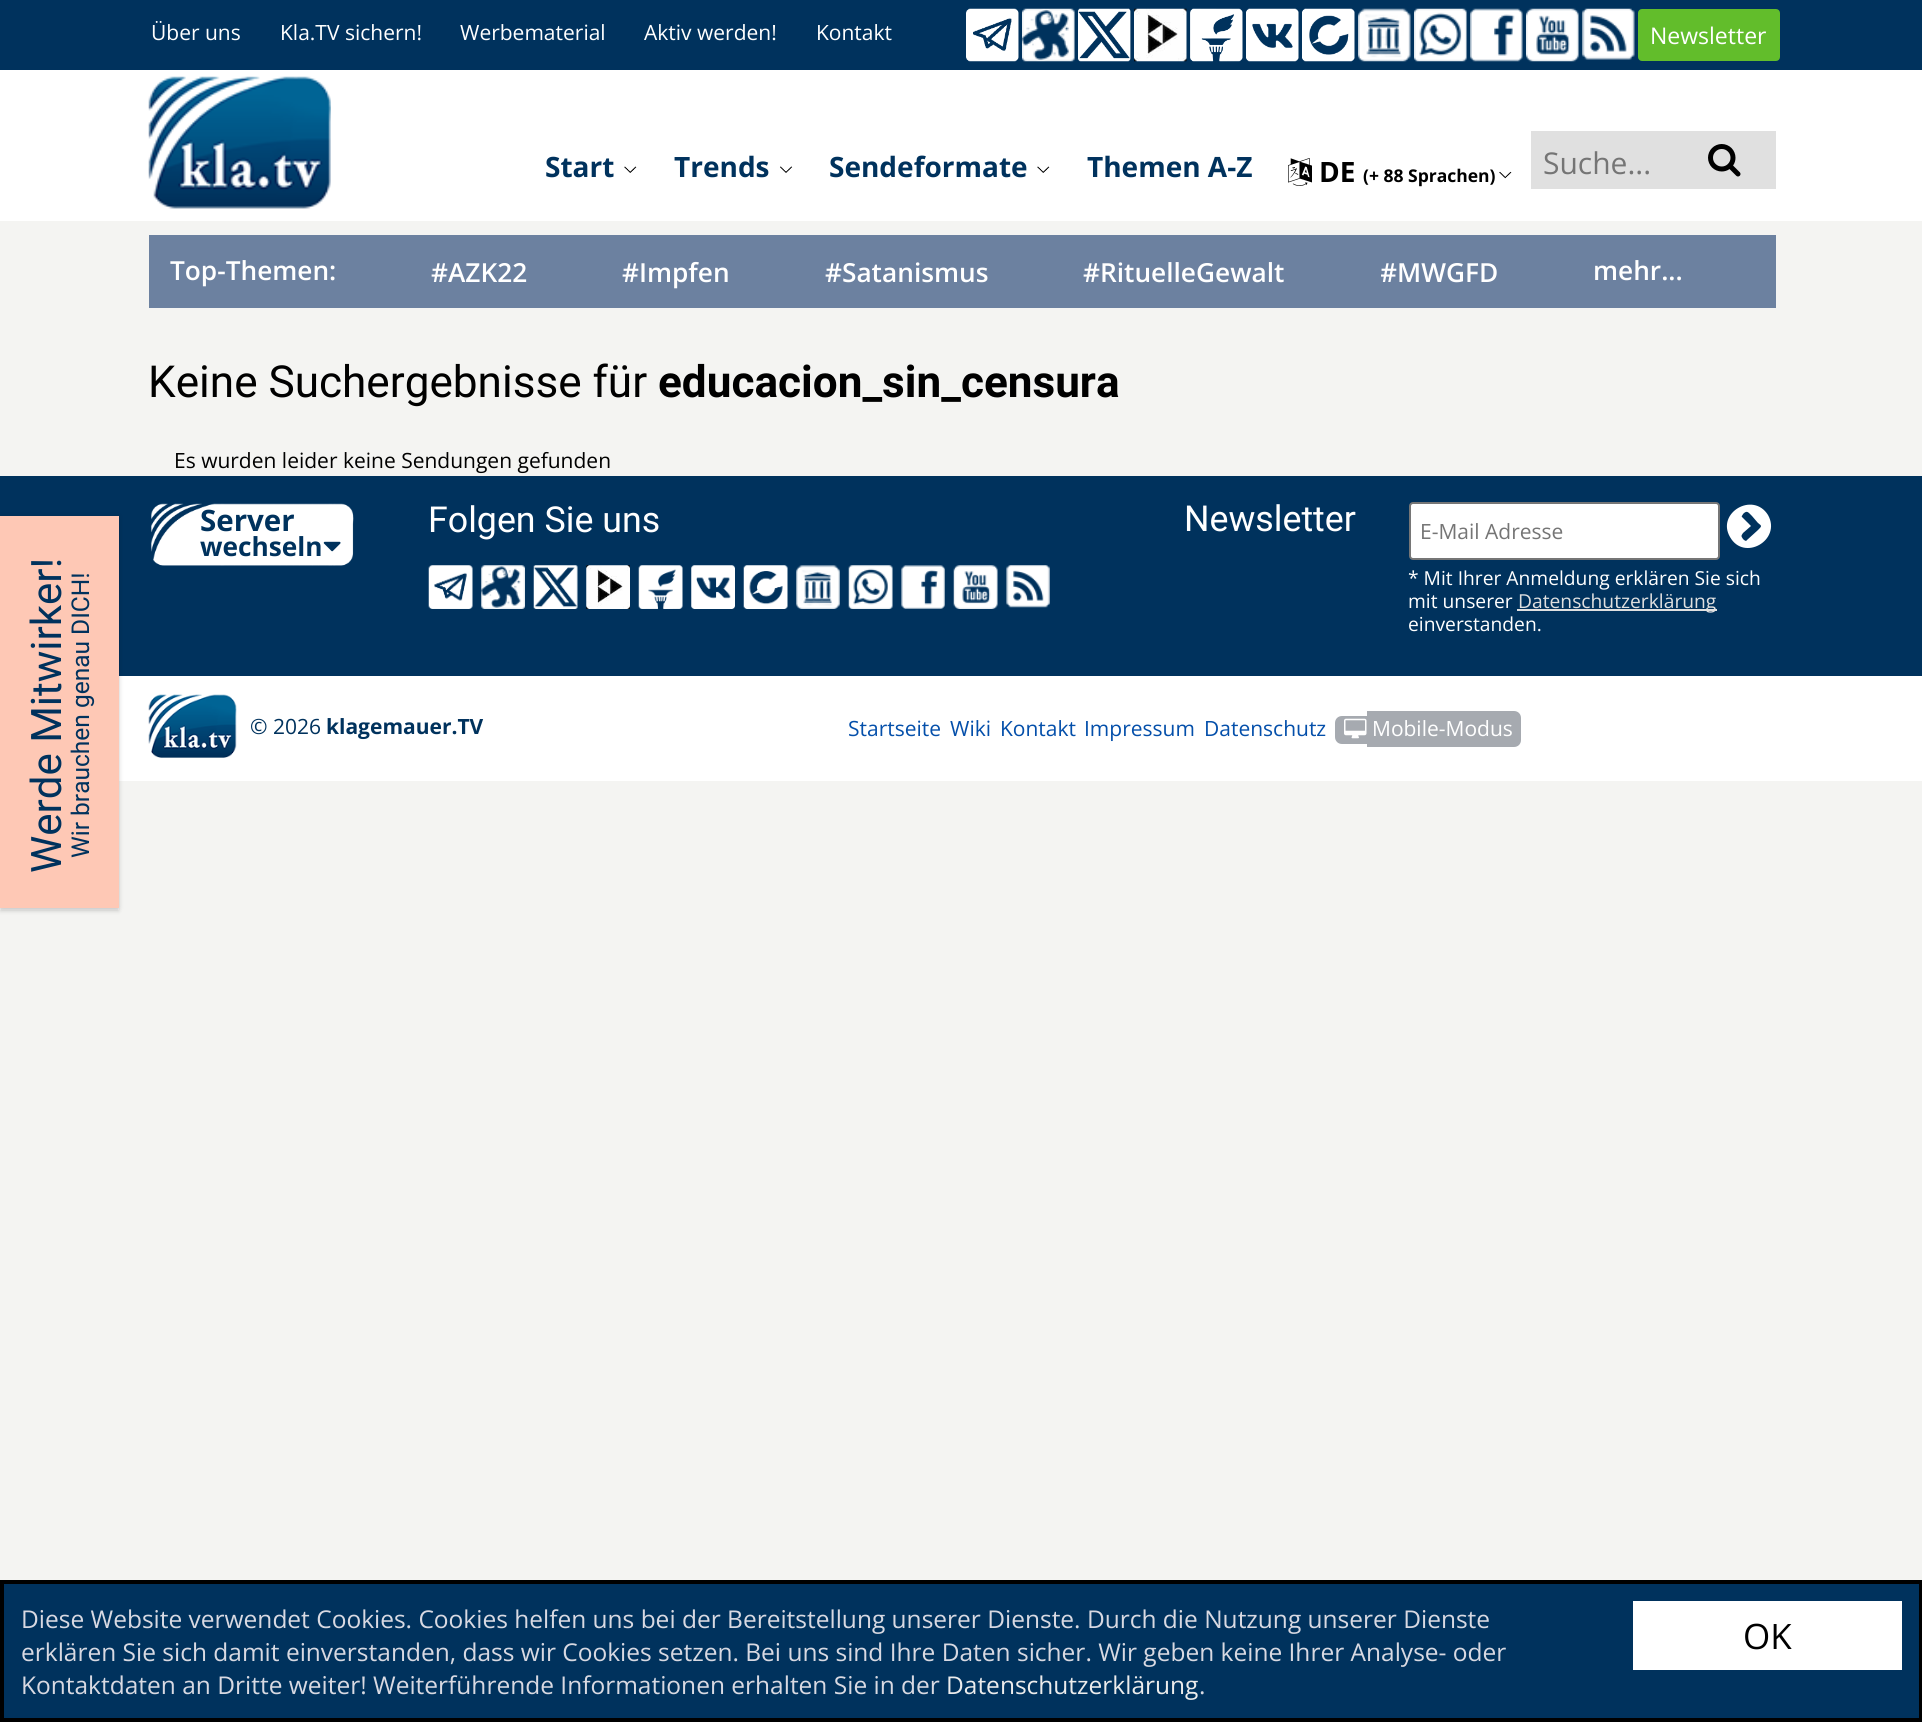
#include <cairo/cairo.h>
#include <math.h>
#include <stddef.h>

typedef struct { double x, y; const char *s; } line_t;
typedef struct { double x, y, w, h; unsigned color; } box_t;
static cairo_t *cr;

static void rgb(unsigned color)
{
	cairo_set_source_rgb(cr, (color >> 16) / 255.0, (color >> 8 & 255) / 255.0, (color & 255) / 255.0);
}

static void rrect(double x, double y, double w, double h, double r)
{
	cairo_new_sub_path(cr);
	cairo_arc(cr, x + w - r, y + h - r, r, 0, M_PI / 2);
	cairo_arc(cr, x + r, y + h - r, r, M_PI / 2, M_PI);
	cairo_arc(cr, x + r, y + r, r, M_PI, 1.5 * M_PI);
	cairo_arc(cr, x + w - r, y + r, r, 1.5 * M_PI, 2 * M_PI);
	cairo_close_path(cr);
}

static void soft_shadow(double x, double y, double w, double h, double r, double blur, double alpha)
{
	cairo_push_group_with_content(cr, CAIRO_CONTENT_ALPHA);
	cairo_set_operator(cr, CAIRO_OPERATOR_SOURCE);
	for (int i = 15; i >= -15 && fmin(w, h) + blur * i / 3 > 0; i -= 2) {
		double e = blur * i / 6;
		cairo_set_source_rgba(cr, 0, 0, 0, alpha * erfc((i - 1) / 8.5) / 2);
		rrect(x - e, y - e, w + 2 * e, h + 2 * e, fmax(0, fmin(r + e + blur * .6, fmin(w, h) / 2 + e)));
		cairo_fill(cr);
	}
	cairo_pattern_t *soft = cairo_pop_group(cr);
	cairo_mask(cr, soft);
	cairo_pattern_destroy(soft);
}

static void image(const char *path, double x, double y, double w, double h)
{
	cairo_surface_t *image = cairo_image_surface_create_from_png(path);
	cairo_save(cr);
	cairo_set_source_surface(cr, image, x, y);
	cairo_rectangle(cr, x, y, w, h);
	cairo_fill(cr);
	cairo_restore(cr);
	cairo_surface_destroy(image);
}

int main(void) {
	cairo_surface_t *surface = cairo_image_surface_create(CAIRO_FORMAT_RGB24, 1922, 1722);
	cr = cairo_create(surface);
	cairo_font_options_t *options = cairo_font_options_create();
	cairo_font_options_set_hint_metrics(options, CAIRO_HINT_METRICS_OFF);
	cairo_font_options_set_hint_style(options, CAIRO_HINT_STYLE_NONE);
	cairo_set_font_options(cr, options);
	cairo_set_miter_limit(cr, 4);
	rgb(0xf4f4f2);
	cairo_paint(cr);
	rgb(0x00325d);
	cairo_rectangle(cr, 0, 0, 1922, 70);
	cairo_fill(cr);
	image("img/1.png", 966, 8, 53, 54);
	image("img/2.png", 1022, 8, 53, 54);
	image("img/3.png", 1078, 8, 53, 54);
	image("img/4.png", 1134, 8, 53, 54);
	image("img/5.png", 1190, 8, 53, 54);
	image("img/6.png", 1246, 8, 53, 54);
	image("img/7.png", 1302, 8, 53, 54);
	image("img/8.png", 1358, 8, 53, 54);
	image("img/9.png", 1414, 8, 53, 54);
	image("img/10.png", 1470, 8, 53, 54);
	image("img/11.png", 1526, 8, 53, 54);
	image("img/12.png", 1582, 8, 53, 52);
	rgb(0x62bd2b);
	rrect(1639, 10, 140, 50, 3);
	cairo_fill_preserve(cr);
	cairo_stroke(cr);
	rgb(0xffffff);
	cairo_rectangle(cr, 0, 70, 1922, 151);
	cairo_fill(cr);
	image("img/13.png", 148, 76, 183, 133);
	image("img/14.png", 624, 166, 13, 7);
	image("img/15.png", 780, 166, 13, 7);
	image("img/14.png", 1037, 166, 13, 7);
	image("img/16.png", 1288, 158, 24, 28);
	image("img/17.png", 1499, 171, 13, 8);
	rgb(0xe0e0e0);
	cairo_rectangle(cr, 1531, 131, 245, 58);
	cairo_fill(cr);
	image("img/18.png", 1708, 144, 33, 33);
	{
		static const box_t items[] = {
			{149, 235, 1627, 73, 0x6c81a0},
			{0, 908, 119, 2, 0xffffff},
			{0, 476, 1922, 200, 0x00325d},
			{119, 676, 1803, 105, 0xffffff},
		};
		for (size_t i = 0; i < sizeof items / sizeof *items; i++) {
			rgb(items[i].color);
			cairo_rectangle(cr, items[i].x, items[i].y, items[i].w, items[i].h);
			cairo_fill(cr);
		}
	}
	rgb(0x000000);
	soft_shadow(0, 516, 119, 392, 0, 3.5, 0.08);
	soft_shadow(0, 520, 119, 392, 0, 2, 0.08);
	soft_shadow(0, 518, 119, 392, 0, 1, 0.08);
	rgb(0xfec8b5);
	cairo_rectangle(cr, 0, 516, 119, 392);
	cairo_fill(cr);
	image("img/19.png", 151, 503, 203, 63);
	image("img/20.png", 323, 541, 18, 11);
	image("img/21.png", 428, 565, 45, 44);
	image("img/22.png", 481, 565, 44, 44);
	image("img/23.png", 533, 565, 45, 44);
	image("img/24.png", 586, 565, 44, 44);
	image("img/25.png", 638, 565, 45, 44);
	image("img/26.png", 691, 565, 44, 44);
	image("img/27.png", 743, 565, 45, 44);
	image("img/28.png", 796, 565, 44, 44);
	image("img/29.png", 848, 565, 45, 44);
	image("img/30.png", 901, 565, 44, 44);
	image("img/31.png", 953, 565, 45, 44);
	image("img/32.png", 1006, 565, 44, 43);
	rgb(0xffffff);
	rrect(1410, 503, 309, 56, 3);
	cairo_fill_preserve(cr);
	rgb(0x767676);
	cairo_stroke(cr);
	rgb(0xffffff);
	cairo_new_path(cr);
	cairo_move_to(cr, 1747, 540);
	cairo_line_to(cr, 1758, 530);
	cairo_curve_to(cr, 1762, 526, 1762, 526, 1758, 523);
	cairo_line_to(cr, 1752, 516);
	cairo_curve_to(cr, 1748, 512, 1747, 510, 1743, 514);
	cairo_curve_to(cr, 1743, 515, 1741, 516, 1742, 517);
	cairo_line_to(cr, 1751, 526);
	cairo_line_to(cr, 1743, 533);
	cairo_curve_to(cr, 1741, 536, 1741, 536, 1743, 539);
	cairo_curve_to(cr, 1744, 540, 1746, 542, 1747, 540);
	cairo_close_path(cr);
	cairo_move_to(cr, 1768, 515);
	cairo_curve_to(cr, 1782, 540, 1744, 562, 1730, 537);
	cairo_curve_to(cr, 1716, 513, 1753, 491, 1768, 515);
	cairo_close_path(cr);
	cairo_fill(cr);
	rgb(0xe0e0e0);
	cairo_rectangle(cr, 1517, 609, 200, 2);
	cairo_fill(cr);
	image("img/33.png", 148, 694, 89, 64);
	rgb(0xa6aab0);
	cairo_new_path(cr);
	cairo_move_to(cr, 1342, 716);
	cairo_line_to(cr, 1367, 716);
	cairo_line_to(cr, 1367, 744);
	cairo_line_to(cr, 1342, 744);
	cairo_curve_to(cr, 1338, 744, 1335, 741, 1335, 737);
	cairo_line_to(cr, 1335, 723);
	cairo_curve_to(cr, 1335, 719, 1338, 716, 1342, 716);
	cairo_close_path(cr);
	cairo_fill(cr);
	cairo_new_path(cr);
	cairo_move_to(cr, 1367, 711);
	cairo_line_to(cr, 1514, 711);
	cairo_curve_to(cr, 1518, 711, 1521, 714, 1521, 718);
	cairo_line_to(cr, 1521, 740);
	cairo_curve_to(cr, 1521, 744, 1518, 747, 1514, 747);
	cairo_line_to(cr, 1367, 747);
	cairo_close_path(cr);
	cairo_fill(cr);
	image("img/34.png", 1344, 718, 23, 21);
	rgb(0x00325d);
	cairo_rectangle(cr, 2, 1582, 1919, 138);
	cairo_fill_preserve(cr);
	rgb(0x000000);
	cairo_set_line_width(cr, 4);
	cairo_stroke(cr);
	rgb(0xffffff);
	cairo_rectangle(cr, 1633, 1601, 269, 69);
	cairo_fill(cr);
	cairo_select_font_face(cr, "Open Sans", CAIRO_FONT_SLANT_NORMAL, CAIRO_FONT_WEIGHT_NORMAL);
	cairo_set_font_size(cr, 21);
	{
		static const line_t items[] = {
			{151, 40, "Über uns"},
			{280, 40, "Kla.TV sichern!"},
			{460, 40, "Werbematerial"},
			{644, 40, "Aktiv werden!"},
			{816, 40, "Kontakt"},
		};
		for (size_t i = 0; i < sizeof items / sizeof *items; i++) {
			cairo_move_to(cr, items[i].x, items[i].y);
			cairo_show_text(cr, items[i].s);
		}
	}
	cairo_set_font_size(cr, 23);
	cairo_move_to(cr, 1650, 44);
	cairo_show_text(cr, "Newsletter");
	cairo_select_font_face(cr, "Open Sans", CAIRO_FONT_SLANT_NORMAL, CAIRO_FONT_WEIGHT_BOLD);
	cairo_set_font_size(cr, 28);
	rgb(0x00325d);
	{
		static const line_t items[] = {
			{545, 177, "Start"},
			{674, 177, "Trends"},
			{829, 177, "Sendeformate"},
			{1087, 177, "Themen A-Z"},
		};
		for (size_t i = 0; i < sizeof items / sizeof *items; i++) {
			cairo_move_to(cr, items[i].x, items[i].y);
			cairo_show_text(cr, items[i].s);
		}
	}
	rgb(0x000000);
	cairo_move_to(cr, 1319, 182);
	cairo_show_text(cr, "DE");
	cairo_set_font_size(cr, 17.5);
	cairo_move_to(cr, 1363, 182);
	cairo_show_text(cr, "(+ 88 Sprachen)");
	cairo_select_font_face(cr, "Open Sans", CAIRO_FONT_SLANT_NORMAL, CAIRO_FONT_WEIGHT_NORMAL);
	cairo_set_font_size(cr, 30);
	rgb(0x757575);
	cairo_move_to(cr, 1543, 174);
	cairo_show_text(cr, "Suche...");
	cairo_select_font_face(cr, "Open Sans SemiBold", CAIRO_FONT_SLANT_NORMAL, CAIRO_FONT_WEIGHT_NORMAL);
	cairo_set_font_size(cr, 26.25);
	rgb(0xffffff);
	{
		static const line_t items[] = {
			{170, 280, "Top-Themen:"},
			{431, 282, "#AZK22"},
			{622, 282, "#Impfen"},
			{825, 282, "#Satanismus"},
			{1083, 282, "#RituelleGewalt"},
		};
		for (size_t i = 0; i < sizeof items / sizeof *items; i++) {
			cairo_move_to(cr, items[i].x, items[i].y);
			cairo_show_text(cr, items[i].s);
		}
	}
	cairo_save(cr);
	cairo_rectangle(cr, 1381, 256, 117, 33);
	cairo_clip(cr);
	cairo_move_to(cr, 1380, 282);
	cairo_show_text(cr, "#MWGFD");
	cairo_restore(cr);
	cairo_move_to(cr, 1593, 280);
	cairo_show_text(cr, "mehr...");
	cairo_select_font_face(cr, "Roboto", CAIRO_FONT_SLANT_NORMAL, CAIRO_FONT_WEIGHT_NORMAL);
	cairo_set_font_size(cr, 44.1);
	rgb(0x000000);
	cairo_move_to(cr, 148, 397);
	cairo_show_text(cr, "Keine Suchergebnisse für");
	cairo_select_font_face(cr, "Roboto", CAIRO_FONT_SLANT_NORMAL, CAIRO_FONT_WEIGHT_BOLD);
	cairo_move_to(cr, 658, 397);
	cairo_show_text(cr, "educacion_sin_censura");
	cairo_select_font_face(cr, "Open Sans", CAIRO_FONT_SLANT_NORMAL, CAIRO_FONT_WEIGHT_NORMAL);
	cairo_set_font_size(cr, 21);
	cairo_move_to(cr, 174, 468);
	cairo_show_text(cr, "Es wurden leider keine Sendungen gefunden");
	cairo_select_font_face(cr, "Roboto", CAIRO_FONT_SLANT_NORMAL, CAIRO_FONT_WEIGHT_NORMAL);
	cairo_set_font_size(cr, 42);
	rgb(0x00325d);
	cairo_save(cr);
	cairo_translate(cr, 61, 873);
	cairo_rotate(cr, -90 * M_PI / 180);
	cairo_move_to(cr, 0, 0);
	cairo_show_text(cr, "Werde Mitwirker!");
	cairo_restore(cr);
	cairo_set_font_size(cr, 24.5);
	cairo_save(cr);
	cairo_translate(cr, 89, 858);
	cairo_rotate(cr, -90 * M_PI / 180);
	cairo_move_to(cr, 0, 0);
	cairo_show_text(cr, "Wir brauchen genau DICH!");
	cairo_restore(cr);
	cairo_select_font_face(cr, "Open Sans", CAIRO_FONT_SLANT_NORMAL, CAIRO_FONT_WEIGHT_BOLD);
	cairo_set_font_size(cr, 29.5);
	cairo_move_to(cr, 200, 531);
	cairo_show_text(cr, "Server");
	cairo_set_font_size(cr, 26.25);
	cairo_move_to(cr, 200, 556);
	cairo_show_text(cr, "wechseln");
	cairo_select_font_face(cr, "Roboto", CAIRO_FONT_SLANT_NORMAL, CAIRO_FONT_WEIGHT_NORMAL);
	cairo_set_font_size(cr, 35.75);
	rgb(0xffffff);
	cairo_move_to(cr, 428, 532);
	cairo_show_text(cr, "Folgen Sie uns");
	cairo_move_to(cr, 1184, 531);
	cairo_show_text(cr, "Newsletter");
	cairo_select_font_face(cr, "Open Sans", CAIRO_FONT_SLANT_NORMAL, CAIRO_FONT_WEIGHT_NORMAL);
	cairo_set_font_size(cr, 21);
	rgb(0x757575);
	cairo_move_to(cr, 1420, 539);
	cairo_show_text(cr, "E-Mail Adresse");
	cairo_set_font_size(cr, 19.25);
	rgb(0xffffff);
	cairo_move_to(cr, 1408, 585);
	cairo_show_text(cr, "* Mit Ihrer Anmeldung erklären Sie sich");
	cairo_move_to(cr, 1408, 608);
	cairo_show_text(cr, "mit unserer");
	rgb(0xe0e0e0);
	cairo_move_to(cr, 1518, 608);
	cairo_show_text(cr, "Datenschutzerklärung");
	rgb(0xffffff);
	cairo_move_to(cr, 1408, 631);
	cairo_show_text(cr, "einverstanden.");
	cairo_set_font_size(cr, 21);
	rgb(0x00325d);
	cairo_move_to(cr, 250, 734);
	cairo_show_text(cr, "© 2026");
	cairo_select_font_face(cr, "Open Sans", CAIRO_FONT_SLANT_NORMAL, CAIRO_FONT_WEIGHT_BOLD);
	cairo_move_to(cr, 326, 734);
	cairo_show_text(cr, "klagemauer.TV");
	cairo_select_font_face(cr, "Open Sans", CAIRO_FONT_SLANT_NORMAL, CAIRO_FONT_WEIGHT_NORMAL);
	rgb(0x044faa);
	{
		static const line_t items[] = {
			{848, 736, "Startseite"},
			{950, 736, "Wiki"},
			{1000, 736, "Kontakt"},
			{1084, 736, "Impressum"},
			{1204, 736, "Datenschutz"},
		};
		for (size_t i = 0; i < sizeof items / sizeof *items; i++) {
			cairo_move_to(cr, items[i].x, items[i].y);
			cairo_show_text(cr, items[i].s);
		}
	}
	rgb(0xffffff);
	cairo_move_to(cr, 1372, 736);
	cairo_show_text(cr, "Mobile-Modus");
	cairo_set_font_size(cr, 24.5);
	rgb(0xd8d9e2);
	{
		static const line_t items[] = {
			{21, 1628, "Diese Website verwendet Cookies. Cookies helfen uns bei der Bereitstellung unserer Dienste. Durch die Nutzung unserer Dienste"},
			{21, 1661, "erklären Sie sich damit einverstanden, dass wir Cookies setzen. Bei uns sind Ihre Daten sicher. Wir geben keine Ihrer Analyse- oder"},
			{21, 1694, "Kontaktdaten an Dritte weiter! Weiterführende Informationen erhalten Sie in der"},
		};
		for (size_t i = 0; i < sizeof items / sizeof *items; i++) {
			cairo_move_to(cr, items[i].x, items[i].y);
			cairo_show_text(cr, items[i].s);
		}
	}
	rgb(0xececec);
	cairo_move_to(cr, 946, 1694);
	cairo_show_text(cr, "Datenschutzerklärung");
	rgb(0xd8d9e2);
	cairo_move_to(cr, 1199, 1694);
	cairo_show_text(cr, ".");
	cairo_set_font_size(cr, 35);
	rgb(0x000000);
	cairo_move_to(cr, 1743, 1649);
	cairo_show_text(cr, "OK");
	cairo_surface_write_to_png(surface, "page.png");
	cairo_font_options_destroy(options);
	cairo_destroy(cr);
	cairo_surface_destroy(surface);
	return 0;
}
